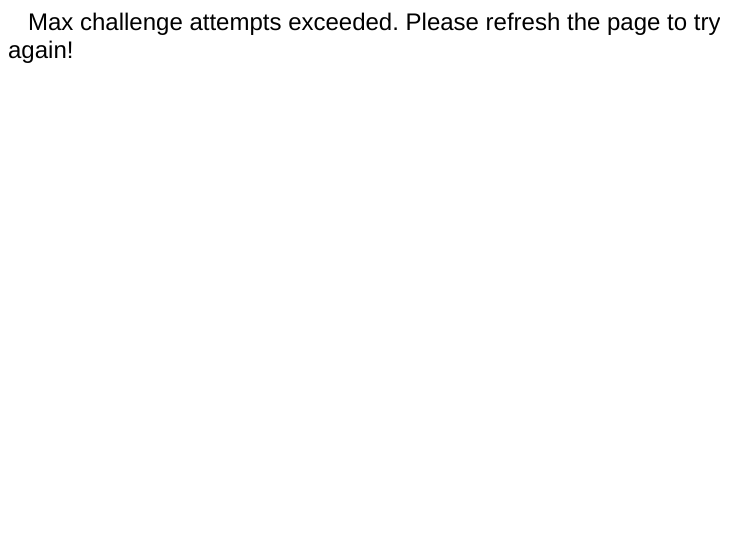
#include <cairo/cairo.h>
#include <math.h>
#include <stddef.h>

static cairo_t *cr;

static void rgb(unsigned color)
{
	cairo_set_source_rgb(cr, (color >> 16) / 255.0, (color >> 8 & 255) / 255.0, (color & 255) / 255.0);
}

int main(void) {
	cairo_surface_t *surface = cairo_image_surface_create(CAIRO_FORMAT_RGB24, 737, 557);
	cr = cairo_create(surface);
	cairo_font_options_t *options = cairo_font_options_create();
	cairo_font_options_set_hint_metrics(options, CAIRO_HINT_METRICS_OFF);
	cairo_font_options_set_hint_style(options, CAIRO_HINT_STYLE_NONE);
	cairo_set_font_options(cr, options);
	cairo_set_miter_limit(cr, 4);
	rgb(0xffffff);
	cairo_paint(cr);
	cairo_select_font_face(cr, "Liberation Sans", CAIRO_FONT_SLANT_NORMAL, CAIRO_FONT_WEIGHT_NORMAL);
	cairo_set_font_size(cr, 24);
	rgb(0x000000);
	cairo_move_to(cr, 28, 30);
	cairo_show_text(cr, "Max challenge attempts exceeded. Please refresh the page to try");
	cairo_move_to(cr, 8, 58);
	cairo_show_text(cr, "again!");
	cairo_surface_write_to_png(surface, "page.png");
	cairo_font_options_destroy(options);
	cairo_destroy(cr);
	cairo_surface_destroy(surface);
	return 0;
}
